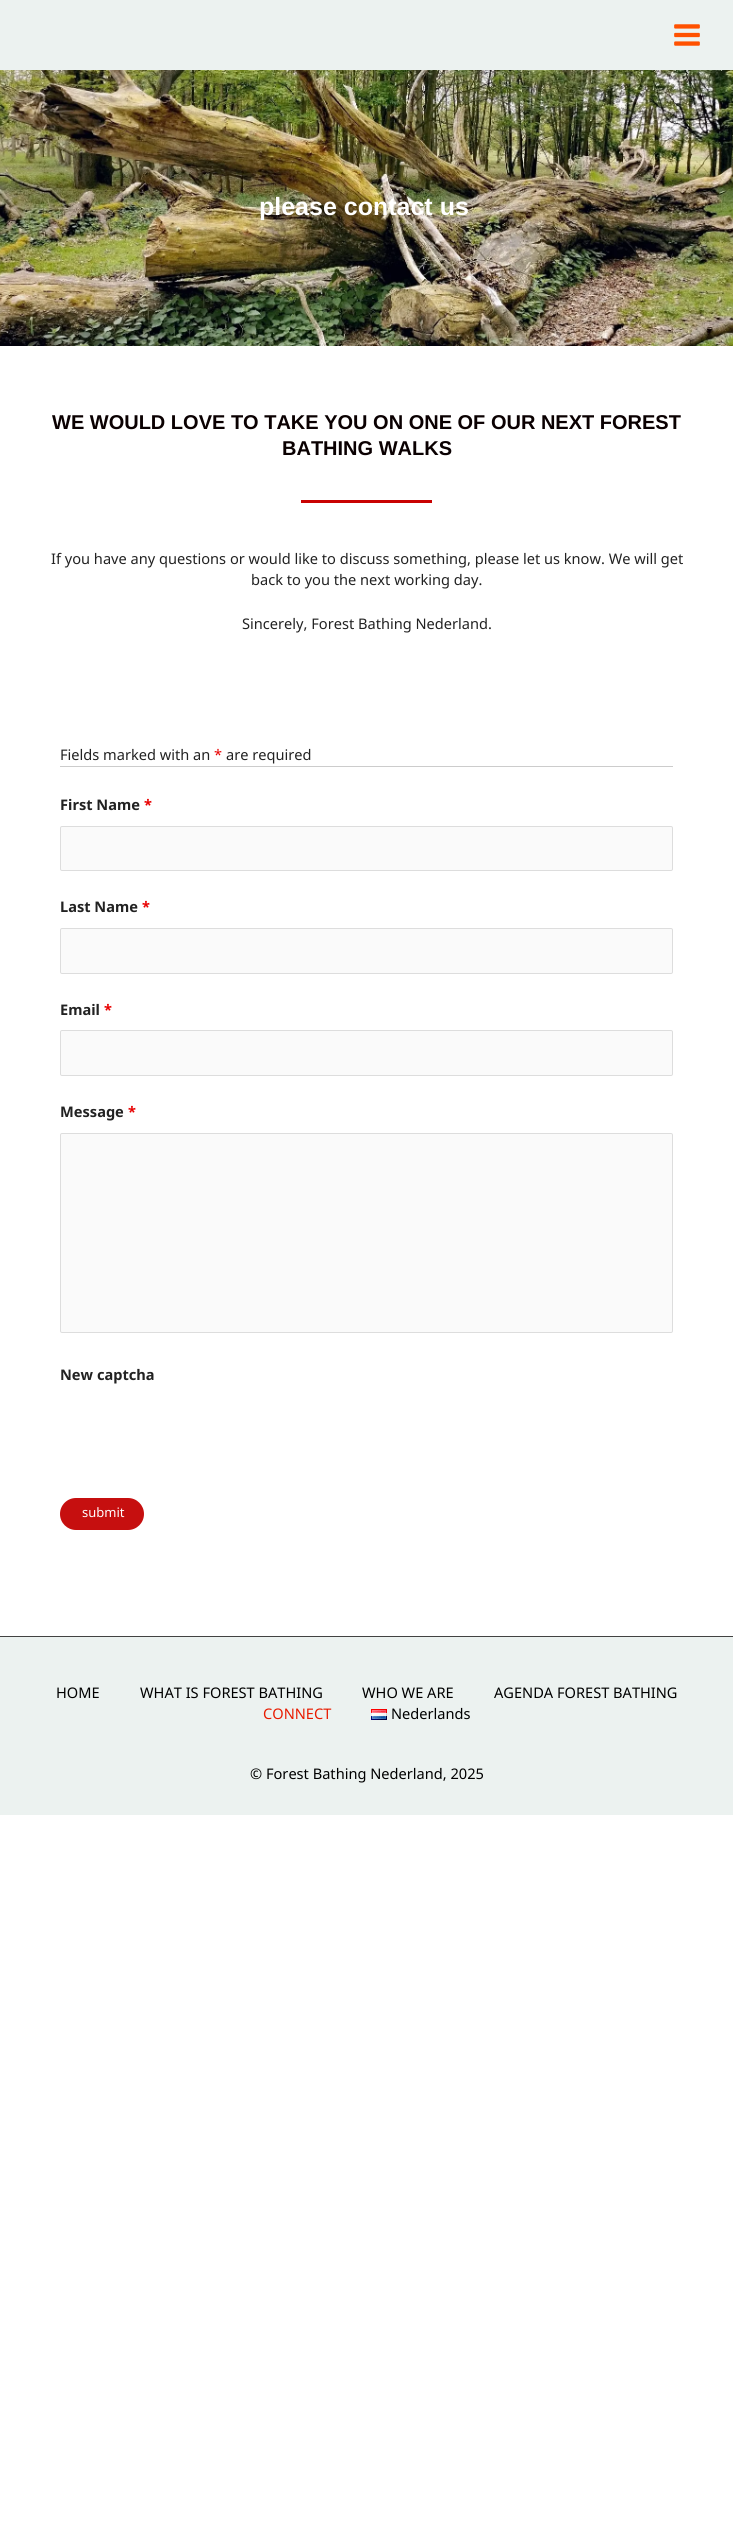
#include <cairo/cairo.h>
#include <math.h>
#include <stddef.h>

typedef struct { double x, y; const char *s; } line_t;
static cairo_t *cr;

static void rgb(unsigned color)
{
	cairo_set_source_rgb(cr, (color >> 16) / 255.0, (color >> 8 & 255) / 255.0, (color & 255) / 255.0);
}

static void rrect(double x, double y, double w, double h, double r)
{
	cairo_new_sub_path(cr);
	cairo_arc(cr, x + w - r, y + h - r, r, 0, M_PI / 2);
	cairo_arc(cr, x + r, y + h - r, r, M_PI / 2, M_PI);
	cairo_arc(cr, x + r, y + r, r, M_PI, 1.5 * M_PI);
	cairo_arc(cr, x + w - r, y + r, r, 1.5 * M_PI, 2 * M_PI);
	cairo_close_path(cr);
}

static void image(const char *path, double x, double y, double w, double h)
{
	cairo_surface_t *image = cairo_image_surface_create_from_png(path);
	cairo_save(cr);
	cairo_set_source_surface(cr, image, x, y);
	cairo_rectangle(cr, x, y, w, h);
	cairo_fill(cr);
	cairo_restore(cr);
	cairo_surface_destroy(image);
}

int main(void) {
	cairo_surface_t *surface = cairo_image_surface_create(CAIRO_FORMAT_RGB24, 733, 2521);
	cr = cairo_create(surface);
	cairo_font_options_t *options = cairo_font_options_create();
	cairo_font_options_set_hint_metrics(options, CAIRO_HINT_METRICS_OFF);
	cairo_font_options_set_hint_style(options, CAIRO_HINT_STYLE_NONE);
	cairo_set_font_options(cr, options);
	cairo_set_miter_limit(cr, 4);
	rgb(0xffffff);
	cairo_paint(cr);
	rgb(0xecf2f0);
	cairo_rectangle(cr, 0, 0, 733, 70);
	cairo_fill(cr);
	image("img/1.png", 674, 24, 26, 22);
	image("img/2.png", 0, 70, 733, 276);
	rgb(0xc90202);
	cairo_rectangle(cr, 301, 500, 131, 3);
	cairo_fill(cr);
	rgb(0xcccccc);
	cairo_rectangle(cr, 60, 766, 613, 1);
	cairo_fill(cr);
	rgb(0xfafafa);
	rrect(60.5, 826.5, 612, 44, 1.5);
	cairo_fill_preserve(cr);
	rgb(0xdddddd);
	cairo_set_line_width(cr, 1);
	cairo_stroke(cr);
	rgb(0xfafafa);
	rrect(60.5, 928.5, 612, 45, 1.5);
	cairo_fill_preserve(cr);
	rgb(0xdddddd);
	cairo_stroke(cr);
	rgb(0xfafafa);
	rrect(60.5, 1030.5, 612, 45, 1.5);
	cairo_fill_preserve(cr);
	rgb(0xdddddd);
	cairo_stroke(cr);
	rgb(0xfafafa);
	rrect(60.5, 1133.5, 612, 199, 1.5);
	cairo_fill_preserve(cr);
	rgb(0xdddddd);
	cairo_stroke(cr);
	rgb(0xc60f0f);
	rrect(60, 1498, 84, 32, 16);
	cairo_fill(cr);
	rgb(0xecf2f0);
	cairo_rectangle(cr, 0, 1637, 733, 178);
	cairo_fill(cr);
	rgb(0x424242);
	cairo_rectangle(cr, 0, 1636, 733, 1);
	cairo_fill(cr);
	image("img/3.png", 371, 1709, 16, 11);
	cairo_select_font_face(cr, "Liberation Sans", CAIRO_FONT_SLANT_NORMAL, CAIRO_FONT_WEIGHT_BOLD);
	cairo_set_font_size(cr, 25);
	rgb(0xffffff);
	cairo_move_to(cr, 259, 215);
	cairo_show_text(cr, "please contact us");
	cairo_set_font_size(cr, 20);
	rgb(0x0a0001);
	cairo_move_to(cr, 52, 429);
	cairo_show_text(cr, "WE WOULD LOVE TO TAKE YOU ON ONE OF OUR NEXT FOREST");
	cairo_move_to(cr, 282, 455);
	cairo_show_text(cr, "BATHING WALKS");
	cairo_select_font_face(cr, "Noto Sans", CAIRO_FONT_SLANT_NORMAL, CAIRO_FONT_WEIGHT_NORMAL);
	cairo_set_font_size(cr, 14.6);
	rgb(0x222222);
	{
		static const line_t items[] = {
			{51, 564, "If you have any questions or would like to discuss something, please let us know. We will get"},
			{251, 585, "back to you the next working day."},
			{242, 629, "Sincerely, Forest Bathing Nederland."},
			{60, 760, "Fields marked with an"},
		};
		for (size_t i = 0; i < sizeof items / sizeof *items; i++) {
			cairo_move_to(cr, items[i].x, items[i].y);
			cairo_show_text(cr, items[i].s);
		}
	}
	rgb(0xe80000);
	cairo_move_to(cr, 214, 760);
	cairo_show_text(cr, "*");
	rgb(0x222222);
	cairo_move_to(cr, 226, 760);
	cairo_show_text(cr, "are required");
	cairo_select_font_face(cr, "Noto Sans", CAIRO_FONT_SLANT_NORMAL, CAIRO_FONT_WEIGHT_BOLD);
	cairo_move_to(cr, 60, 810);
	cairo_show_text(cr, "First Name");
	rgb(0xe80000);
	cairo_move_to(cr, 144, 810);
	cairo_show_text(cr, "*");
	rgb(0x222222);
	cairo_move_to(cr, 60, 912);
	cairo_show_text(cr, "Last Name");
	rgb(0xe80000);
	cairo_move_to(cr, 142, 912);
	cairo_show_text(cr, "*");
	rgb(0x222222);
	cairo_move_to(cr, 60, 1015);
	cairo_show_text(cr, "Email");
	rgb(0xe80000);
	cairo_move_to(cr, 104, 1015);
	cairo_show_text(cr, "*");
	rgb(0x222222);
	cairo_move_to(cr, 60, 1117);
	cairo_show_text(cr, "Message");
	rgb(0xe80000);
	cairo_move_to(cr, 128, 1117);
	cairo_show_text(cr, "*");
	rgb(0x222222);
	cairo_move_to(cr, 60, 1380);
	cairo_show_text(cr, "New captcha");
	cairo_select_font_face(cr, "Noto Sans", CAIRO_FONT_SLANT_NORMAL, CAIRO_FONT_WEIGHT_NORMAL);
	cairo_set_font_size(cr, 13);
	rgb(0xffffff);
	cairo_move_to(cr, 82, 1517);
	cairo_show_text(cr, "submit");
	cairo_set_font_size(cr, 14.6);
	rgb(0x000000);
	{
		static const line_t items[] = {
			{56, 1698, "HOME"},
			{140, 1698, "WHAT IS FOREST BATHING"},
			{362, 1698, "WHO WE ARE"},
			{494, 1698, "AGENDA FOREST BATHING"},
		};
		for (size_t i = 0; i < sizeof items / sizeof *items; i++) {
			cairo_move_to(cr, items[i].x, items[i].y);
			cairo_show_text(cr, items[i].s);
		}
	}
	rgb(0xe81b00);
	cairo_move_to(cr, 263, 1719);
	cairo_show_text(cr, "CONNECT");
	rgb(0x000000);
	cairo_move_to(cr, 391, 1719);
	cairo_show_text(cr, "Nederlands");
	cairo_move_to(cr, 250, 1779);
	cairo_show_text(cr, "© Forest Bathing Nederland, 2025");
	cairo_surface_write_to_png(surface, "page.png");
	cairo_font_options_destroy(options);
	cairo_destroy(cr);
	cairo_surface_destroy(surface);
	return 0;
}
